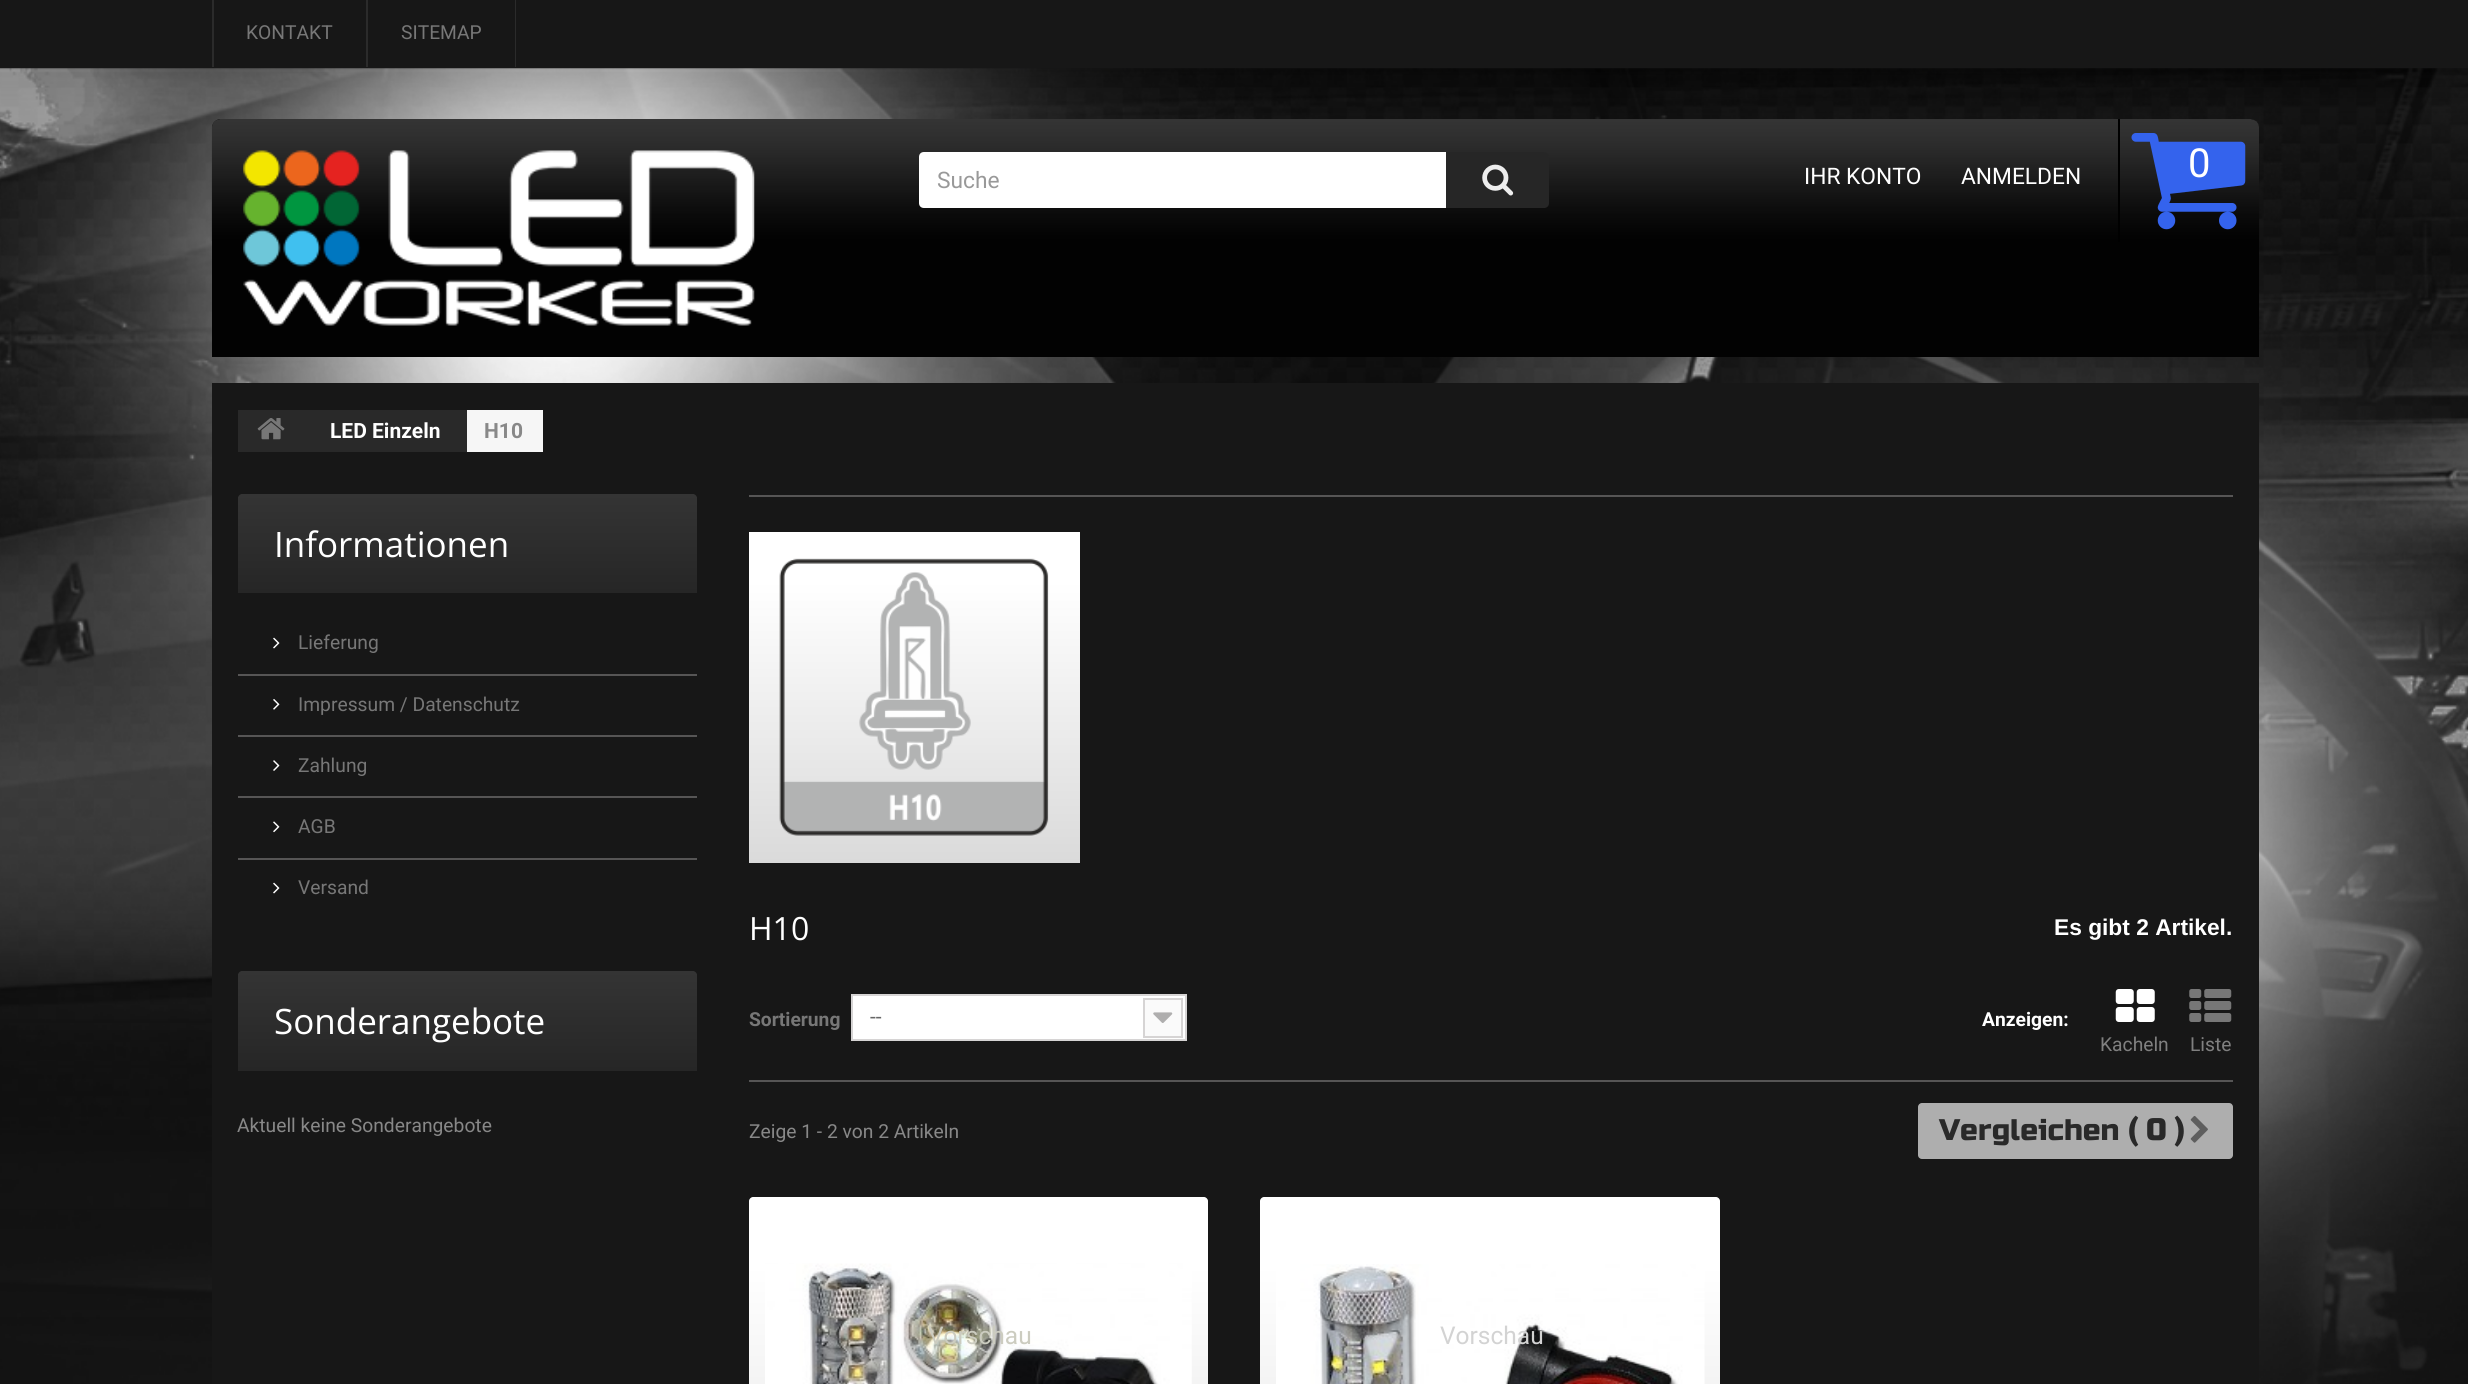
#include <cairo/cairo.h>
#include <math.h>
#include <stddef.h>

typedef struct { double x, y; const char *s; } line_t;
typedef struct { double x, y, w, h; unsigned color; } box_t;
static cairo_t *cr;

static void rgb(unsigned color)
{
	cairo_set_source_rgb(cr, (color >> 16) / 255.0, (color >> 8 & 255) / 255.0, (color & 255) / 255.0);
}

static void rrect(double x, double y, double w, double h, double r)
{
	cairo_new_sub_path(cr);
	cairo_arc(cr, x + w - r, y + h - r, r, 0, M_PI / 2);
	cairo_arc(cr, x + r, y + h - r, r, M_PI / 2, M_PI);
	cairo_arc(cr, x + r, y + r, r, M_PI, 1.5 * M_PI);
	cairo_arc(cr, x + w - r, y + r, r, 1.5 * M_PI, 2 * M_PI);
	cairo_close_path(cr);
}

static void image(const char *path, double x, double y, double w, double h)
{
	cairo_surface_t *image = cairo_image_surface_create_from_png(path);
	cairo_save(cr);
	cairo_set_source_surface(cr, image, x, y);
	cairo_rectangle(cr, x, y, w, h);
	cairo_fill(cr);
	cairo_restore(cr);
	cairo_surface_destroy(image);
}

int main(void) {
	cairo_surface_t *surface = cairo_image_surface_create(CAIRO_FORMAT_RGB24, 2468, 1384);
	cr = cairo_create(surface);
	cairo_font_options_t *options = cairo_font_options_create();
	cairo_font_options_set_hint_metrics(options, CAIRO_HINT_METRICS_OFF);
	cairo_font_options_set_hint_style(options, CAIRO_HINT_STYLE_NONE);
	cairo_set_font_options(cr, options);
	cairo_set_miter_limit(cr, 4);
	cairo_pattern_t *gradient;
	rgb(0x171717);
	cairo_paint(cr);
	image("img/1.png", 0, 68, 2468, 1316);
	{
		static const box_t items[] = {
			{212, 0, 2, 67, 0x2b2b2b},
			{366, 0, 2, 67, 0x2b2b2b},
			{515, 0, 1, 67, 0x2b2b2b},
		};
		for (size_t i = 0; i < sizeof items / sizeof *items; i++) {
			rgb(items[i].color);
			cairo_rectangle(cr, items[i].x, items[i].y, items[i].w, items[i].h);
			cairo_fill(cr);
		}
	}
	rgb(0x020202);
	cairo_new_path(cr);
	cairo_move_to(cr, 221, 119);
	cairo_line_to(cr, 2250, 119);
	cairo_curve_to(cr, 2255, 119, 2259, 123, 2259, 128);
	cairo_line_to(cr, 2259, 357);
	cairo_line_to(cr, 212, 357);
	cairo_line_to(cr, 212, 128);
	cairo_curve_to(cr, 212, 123, 216, 119, 221, 119);
	cairo_close_path(cr);
	cairo_fill(cr);
	image("img/2.png", 211, 119, 2048, 122);
	image("img/3.png", 243, 150, 512, 176);
	rgb(0xffffff);
	cairo_new_path(cr);
	cairo_move_to(cr, 924, 152);
	cairo_line_to(cr, 1446, 152);
	cairo_line_to(cr, 1446, 208);
	cairo_line_to(cr, 924, 208);
	cairo_curve_to(cr, 921, 208, 919, 206, 919, 203);
	cairo_line_to(cr, 919, 157);
	cairo_curve_to(cr, 919, 154, 921, 152, 924, 152);
	cairo_close_path(cr);
	cairo_fill(cr);
	rgb(0x262626);
	cairo_new_path(cr);
	cairo_move_to(cr, 1446, 152);
	cairo_line_to(cr, 1544, 152);
	cairo_curve_to(cr, 1547, 152, 1549, 154, 1549, 157);
	cairo_line_to(cr, 1549, 203);
	cairo_curve_to(cr, 1549, 206, 1547, 208, 1544, 208);
	cairo_line_to(cr, 1446, 208);
	cairo_close_path(cr);
	cairo_fill(cr);
	image("img/4.png", 1482, 164, 32, 32);
	rgb(0x000000);
	cairo_rectangle(cr, 2118, 119, 2, 123);
	cairo_fill(cr);
	image("img/5.png", 2131, 133, 115, 97);
	{
		static const box_t items[] = {
			{212, 383, 2047, 1001, 0x171717},
			{467, 410, 76, 42, 0xf6f6f6},
			{238, 410, 229, 42, 0x292929},
		};
		for (size_t i = 0; i < sizeof items / sizeof *items; i++) {
			rgb(items[i].color);
			cairo_rectangle(cr, items[i].x, items[i].y, items[i].w, items[i].h);
			cairo_fill(cr);
		}
	}
	image("img/6.png", 257, 418, 28, 22);
	gradient = cairo_pattern_create_linear(467, 494, 467, 593);
	cairo_pattern_add_color_stop_rgba(gradient, 0, 0.204, 0.204, 0.204, 1);
	cairo_pattern_add_color_stop_rgba(gradient, 1, 0.149, 0.149, 0.149, 1);
	cairo_set_source(cr, gradient);
	cairo_pattern_destroy(gradient);
	cairo_new_path(cr);
	cairo_move_to(cr, 242, 494);
	cairo_line_to(cr, 693, 494);
	cairo_curve_to(cr, 695, 494, 697, 496, 697, 498);
	cairo_line_to(cr, 697, 593);
	cairo_line_to(cr, 238, 593);
	cairo_line_to(cr, 238, 498);
	cairo_curve_to(cr, 238, 496, 240, 494, 242, 494);
	cairo_close_path(cr);
	cairo_fill(cr);
	image("img/7.png", 273, 637, 7, 12);
	rgb(0x565555);
	cairo_rectangle(cr, 238, 674, 459, 2);
	cairo_fill(cr);
	image("img/8.png", 273, 699, 7, 11);
	cairo_rectangle(cr, 238, 735, 459, 2);
	cairo_fill(cr);
	image("img/9.png", 273, 760, 7, 11);
	cairo_rectangle(cr, 238, 796, 459, 2);
	cairo_fill(cr);
	image("img/10.png", 273, 821, 7, 12);
	cairo_rectangle(cr, 238, 858, 459, 2);
	cairo_fill(cr);
	image("img/7.png", 273, 882, 7, 12);
	gradient = cairo_pattern_create_linear(467, 971, 467, 1071);
	cairo_pattern_add_color_stop_rgba(gradient, 0, 0.204, 0.204, 0.204, 1);
	cairo_pattern_add_color_stop_rgba(gradient, 1, 0.149, 0.149, 0.149, 1);
	cairo_set_source(cr, gradient);
	cairo_pattern_destroy(gradient);
	cairo_new_path(cr);
	cairo_move_to(cr, 242, 971);
	cairo_line_to(cr, 693, 971);
	cairo_curve_to(cr, 695, 971, 697, 973, 697, 975);
	cairo_line_to(cr, 697, 1071);
	cairo_line_to(cr, 238, 1071);
	cairo_line_to(cr, 238, 975);
	cairo_curve_to(cr, 238, 973, 240, 971, 242, 971);
	cairo_close_path(cr);
	cairo_fill(cr);
	rgb(0x565555);
	cairo_rectangle(cr, 749, 495, 1484, 2);
	cairo_fill(cr);
	gradient = cairo_pattern_create_linear(914, 532, 914, 863);
	cairo_pattern_add_color_stop_rgba(gradient, 0.15, 1, 1, 1, 1);
	cairo_pattern_add_color_stop_rgba(gradient, 1, 0.855, 0.855, 0.855, 1);
	cairo_set_source(cr, gradient);
	cairo_pattern_destroy(gradient);
	cairo_rectangle(cr, 749, 532, 331, 331);
	cairo_fill(cr);
	image("img/11.png", 779, 558, 270, 278);
	rgb(0x565555);
	cairo_rectangle(cr, 749, 1080, 1484, 2);
	cairo_fill(cr);
	rgb(0xffffff);
	cairo_rectangle(cr, 852, 995, 334, 45);
	cairo_fill_preserve(cr);
	rgb(0xd6d4d4);
	cairo_stroke(cr);
	rgb(0xfafafa);
	cairo_rectangle(cr, 1144, 999, 38, 38);
	cairo_fill_preserve(cr);
	rgb(0xd6d4d4);
	cairo_stroke(cr);
	image("img/12.png", 1153, 1012, 20, 11);
	image("img/13.png", 2115, 989, 40, 33);
	image("img/14.png", 2189, 989, 43, 33);
	rgb(0xaeaeae);
	rrect(1918, 1103, 315, 56, 4);
	cairo_fill(cr);
	image("img/15.png", 2190, 1116, 18, 27);
	gradient = cairo_pattern_create_linear(978, 1197, 978, 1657);
	cairo_pattern_add_color_stop_rgba(gradient, 0.15, 1, 1, 1, 1);
	cairo_pattern_add_color_stop_rgba(gradient, 1, 0.855, 0.855, 0.855, 1);
	cairo_set_source(cr, gradient);
	cairo_pattern_destroy(gradient);
	cairo_new_path(cr);
	cairo_move_to(cr, 753, 1197);
	cairo_line_to(cr, 1204, 1197);
	cairo_curve_to(cr, 1206, 1197, 1208, 1199, 1208, 1201);
	cairo_line_to(cr, 1208, 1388);
	cairo_line_to(cr, 749, 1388);
	cairo_line_to(cr, 749, 1201);
	cairo_curve_to(cr, 749, 1199, 751, 1197, 753, 1197);
	cairo_close_path(cr);
	cairo_fill(cr);
	image("img/16.png", 765, 1263, 427, 121);
	gradient = cairo_pattern_create_linear(1490, 1197, 1490, 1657);
	cairo_pattern_add_color_stop_rgba(gradient, 0.15, 1, 1, 1, 1);
	cairo_pattern_add_color_stop_rgba(gradient, 1, 0.855, 0.855, 0.855, 1);
	cairo_set_source(cr, gradient);
	cairo_pattern_destroy(gradient);
	cairo_new_path(cr);
	cairo_move_to(cr, 1264, 1197);
	cairo_line_to(cr, 1716, 1197);
	cairo_curve_to(cr, 1718, 1197, 1720, 1199, 1720, 1201);
	cairo_line_to(cr, 1720, 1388);
	cairo_line_to(cr, 1260, 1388);
	cairo_line_to(cr, 1260, 1201);
	cairo_curve_to(cr, 1260, 1199, 1262, 1197, 1264, 1197);
	cairo_close_path(cr);
	cairo_fill(cr);
	image("img/17.png", 1276, 1264, 429, 120);
	cairo_select_font_face(cr, "Roboto", CAIRO_FONT_SLANT_NORMAL, CAIRO_FONT_WEIGHT_NORMAL);
	cairo_set_font_size(cr, 19.25);
	rgb(0x777777);
	cairo_move_to(cr, 246, 39);
	cairo_show_text(cr, "KONTAKT");
	cairo_move_to(cr, 401, 39);
	cairo_show_text(cr, "SITEMAP");
	cairo_set_font_size(cr, 22.75);
	rgb(0x999999);
	cairo_move_to(cr, 937, 188);
	cairo_show_text(cr, "Suche");
	rgb(0xffffff);
	cairo_move_to(cr, 1804, 184);
	cairo_show_text(cr, "IHR KONTO");
	cairo_move_to(cr, 1961, 184);
	cairo_show_text(cr, "ANMELDEN");
	cairo_set_font_size(cr, 40);
	cairo_move_to(cr, 2188, 177);
	cairo_show_text(cr, "0");
	cairo_select_font_face(cr, "Roboto", CAIRO_FONT_SLANT_NORMAL, CAIRO_FONT_WEIGHT_BOLD);
	cairo_set_font_size(cr, 21);
	cairo_move_to(cr, 330, 438);
	cairo_show_text(cr, "LED Einzeln");
	rgb(0x888888);
	cairo_move_to(cr, 484, 438);
	cairo_show_text(cr, "H10");
	cairo_select_font_face(cr, "Open Sans", CAIRO_FONT_SLANT_NORMAL, CAIRO_FONT_WEIGHT_NORMAL);
	cairo_set_font_size(cr, 35);
	rgb(0xffffff);
	cairo_move_to(cr, 274, 557);
	cairo_show_text(cr, "Informationen");
	cairo_select_font_face(cr, "Roboto", CAIRO_FONT_SLANT_NORMAL, CAIRO_FONT_WEIGHT_NORMAL);
	cairo_set_font_size(cr, 19.25);
	rgb(0x777777);
	{
		static const line_t items[] = {
			{298, 649, "Lieferung"},
			{298, 711, "Impressum / Datenschutz"},
			{298, 772, "Zahlung"},
			{298, 833, "AGB"},
			{298, 894, "Versand"},
		};
		for (size_t i = 0; i < sizeof items / sizeof *items; i++) {
			cairo_move_to(cr, items[i].x, items[i].y);
			cairo_show_text(cr, items[i].s);
		}
	}
	cairo_select_font_face(cr, "Open Sans", CAIRO_FONT_SLANT_NORMAL, CAIRO_FONT_WEIGHT_NORMAL);
	cairo_set_font_size(cr, 35);
	rgb(0xffffff);
	cairo_move_to(cr, 274, 1034);
	cairo_show_text(cr, "Sonderangebote");
	cairo_select_font_face(cr, "Roboto", CAIRO_FONT_SLANT_NORMAL, CAIRO_FONT_WEIGHT_NORMAL);
	cairo_set_font_size(cr, 19.25);
	rgb(0x888888);
	cairo_move_to(cr, 237, 1132);
	cairo_show_text(cr, "Aktuell keine Sonderangebote");
	cairo_select_font_face(cr, "Open Sans", CAIRO_FONT_SLANT_NORMAL, CAIRO_FONT_WEIGHT_NORMAL);
	cairo_set_font_size(cr, 32);
	rgb(0xffffff);
	cairo_move_to(cr, 749, 940);
	cairo_show_text(cr, "H10");
	cairo_select_font_face(cr, "Liberation Sans", CAIRO_FONT_SLANT_NORMAL, CAIRO_FONT_WEIGHT_BOLD);
	cairo_set_font_size(cr, 22.75);
	cairo_move_to(cr, 2054, 935);
	cairo_show_text(cr, "Es gibt 2 Artikel.");
	cairo_select_font_face(cr, "Roboto", CAIRO_FONT_SLANT_NORMAL, CAIRO_FONT_WEIGHT_BOLD);
	cairo_set_font_size(cr, 19.25);
	rgb(0x777777);
	cairo_move_to(cr, 749, 1026);
	cairo_show_text(cr, "Sortierung");
	cairo_select_font_face(cr, "Roboto", CAIRO_FONT_SLANT_NORMAL, CAIRO_FONT_WEIGHT_NORMAL);
	cairo_set_font_size(cr, 21);
	rgb(0x666666);
	cairo_move_to(cr, 870, 1024);
	cairo_show_text(cr, "--");
	cairo_select_font_face(cr, "Roboto", CAIRO_FONT_SLANT_NORMAL, CAIRO_FONT_WEIGHT_BOLD);
	cairo_set_font_size(cr, 19.25);
	rgb(0xffffff);
	cairo_move_to(cr, 1982, 1026);
	cairo_show_text(cr, "Anzeigen:");
	cairo_select_font_face(cr, "Roboto", CAIRO_FONT_SLANT_NORMAL, CAIRO_FONT_WEIGHT_NORMAL);
	rgb(0x808080);
	cairo_move_to(cr, 2100, 1051);
	cairo_show_text(cr, "Kacheln");
	cairo_move_to(cr, 2190, 1051);
	cairo_show_text(cr, "Liste");
	rgb(0x888888);
	cairo_move_to(cr, 749, 1138);
	cairo_show_text(cr, "Zeige 1 - 2 von 2 Artikeln");
	cairo_select_font_face(cr, "Russo One", CAIRO_FONT_SLANT_NORMAL, CAIRO_FONT_WEIGHT_NORMAL);
	cairo_set_font_size(cr, 29.75);
	rgb(0x292929);
	cairo_move_to(cr, 1939, 1140);
	cairo_show_text(cr, "Vergleichen (");
	cairo_select_font_face(cr, "Russo One", CAIRO_FONT_SLANT_NORMAL, CAIRO_FONT_WEIGHT_BOLD);
	cairo_move_to(cr, 2146, 1140);
	cairo_show_text(cr, "0");
	cairo_select_font_face(cr, "Russo One", CAIRO_FONT_SLANT_NORMAL, CAIRO_FONT_WEIGHT_NORMAL);
	cairo_move_to(cr, 2175, 1140);
	cairo_show_text(cr, ")");
	cairo_select_font_face(cr, "Roboto", CAIRO_FONT_SLANT_NORMAL, CAIRO_FONT_WEIGHT_NORMAL);
	cairo_set_font_size(cr, 24.5);
	rgb(0xccccc0);
	cairo_move_to(cr, 928, 1344);
	cairo_show_text(cr, "Vorschau");
	rgb(0xd3d3d3);
	cairo_move_to(cr, 1440, 1344);
	cairo_show_text(cr, "Vorschau");
	cairo_surface_write_to_png(surface, "page.png");
	cairo_font_options_destroy(options);
	cairo_destroy(cr);
	cairo_surface_destroy(surface);
	return 0;
}
